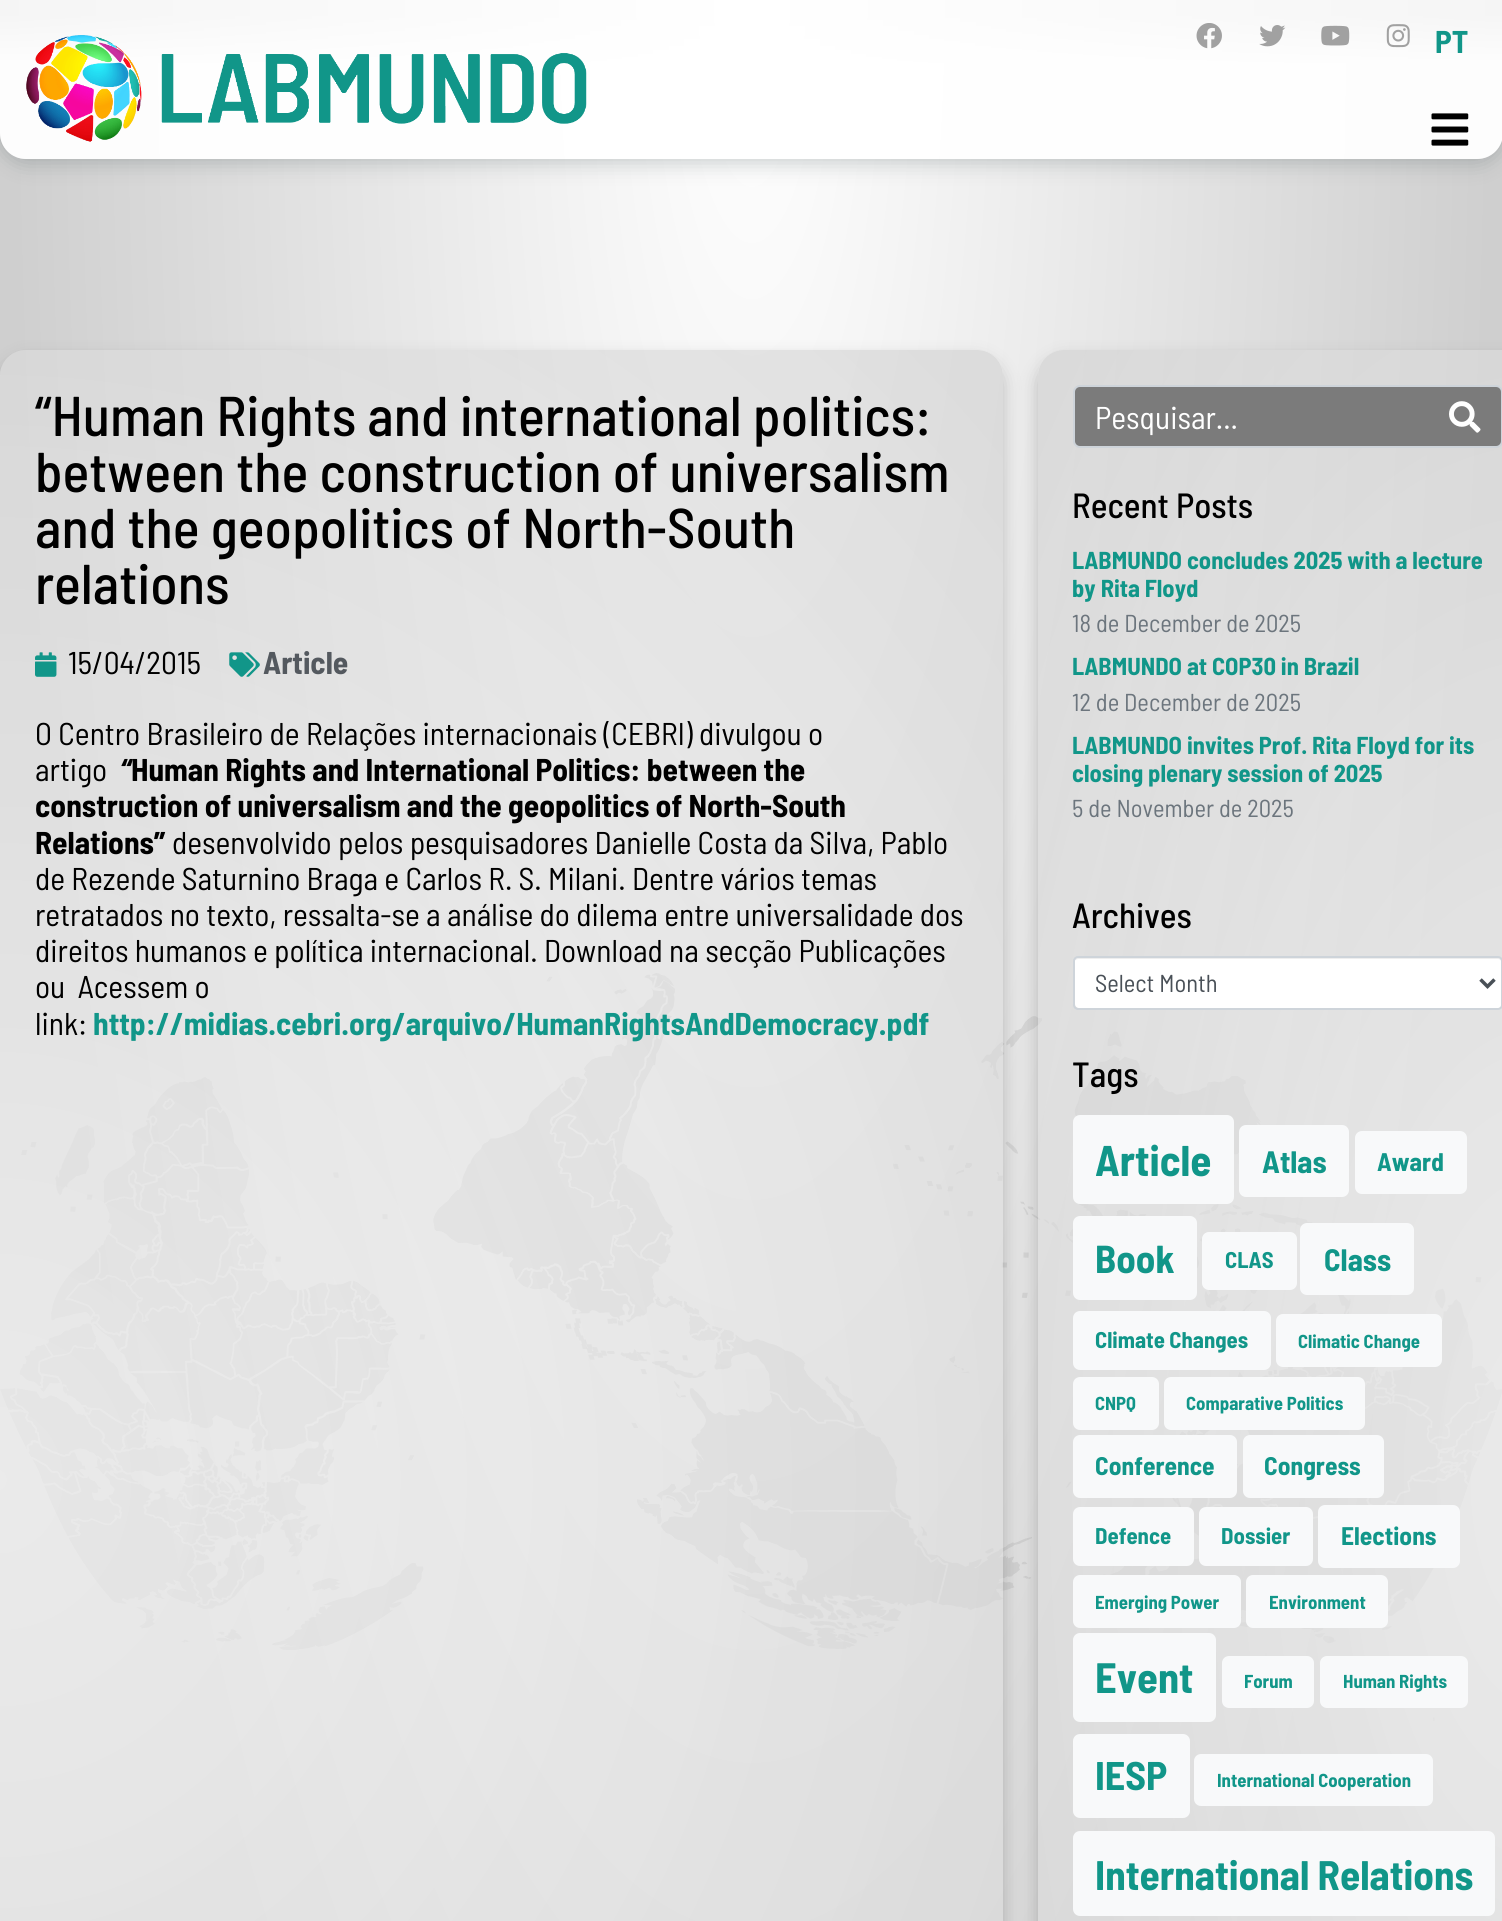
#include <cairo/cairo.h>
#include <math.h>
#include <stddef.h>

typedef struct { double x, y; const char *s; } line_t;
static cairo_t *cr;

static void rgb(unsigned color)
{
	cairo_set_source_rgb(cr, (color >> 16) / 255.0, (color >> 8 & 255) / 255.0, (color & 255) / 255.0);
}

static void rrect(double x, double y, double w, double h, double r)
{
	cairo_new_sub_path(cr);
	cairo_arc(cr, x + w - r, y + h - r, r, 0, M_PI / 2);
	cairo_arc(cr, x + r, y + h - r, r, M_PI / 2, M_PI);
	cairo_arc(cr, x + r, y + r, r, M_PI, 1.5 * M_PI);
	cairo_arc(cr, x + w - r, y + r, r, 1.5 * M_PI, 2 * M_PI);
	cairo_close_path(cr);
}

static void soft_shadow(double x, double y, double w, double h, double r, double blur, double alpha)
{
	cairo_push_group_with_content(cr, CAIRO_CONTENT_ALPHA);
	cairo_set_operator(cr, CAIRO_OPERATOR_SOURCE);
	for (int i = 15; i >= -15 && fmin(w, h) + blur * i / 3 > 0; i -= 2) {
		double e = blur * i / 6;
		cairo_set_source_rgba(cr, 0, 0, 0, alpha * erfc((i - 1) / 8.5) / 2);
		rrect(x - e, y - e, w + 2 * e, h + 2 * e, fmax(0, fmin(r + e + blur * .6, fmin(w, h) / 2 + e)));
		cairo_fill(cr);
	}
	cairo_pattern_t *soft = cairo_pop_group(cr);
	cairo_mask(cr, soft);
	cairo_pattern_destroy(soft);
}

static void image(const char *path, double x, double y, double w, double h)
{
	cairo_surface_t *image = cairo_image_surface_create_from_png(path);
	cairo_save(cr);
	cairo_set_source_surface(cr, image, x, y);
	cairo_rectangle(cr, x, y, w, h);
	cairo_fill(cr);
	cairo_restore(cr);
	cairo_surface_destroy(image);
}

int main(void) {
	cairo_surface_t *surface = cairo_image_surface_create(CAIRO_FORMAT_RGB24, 1502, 1921);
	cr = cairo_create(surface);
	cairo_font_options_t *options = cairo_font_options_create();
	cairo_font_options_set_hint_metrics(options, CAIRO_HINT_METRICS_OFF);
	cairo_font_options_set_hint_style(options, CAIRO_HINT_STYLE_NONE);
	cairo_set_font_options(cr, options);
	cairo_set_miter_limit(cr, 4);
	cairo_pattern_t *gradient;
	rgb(0xffffff);
	cairo_paint(cr);
	gradient = cairo_pattern_create_radial(0, 0, 0, 0, 0, 1);
	cairo_pattern_set_matrix(gradient, &(cairo_matrix_t){1.0 / 1063, 0, 0, 1.0 / 3814, -1.0 * 752 / 1063, -1.0 * 0 / 3814});
	cairo_pattern_add_color_stop_rgba(gradient, 0, 1, 1, 1, 1);
	cairo_pattern_add_color_stop_rgba(gradient, 0.7, 0.812, 0.812, 0.812, 1);
	cairo_set_source(cr, gradient);
	cairo_pattern_destroy(gradient);
	cairo_rectangle(cr, 0, 0, 1502, 1921);
	cairo_fill(cr);
	cairo_save(cr);
	cairo_set_fill_rule(cr, CAIRO_FILL_RULE_EVEN_ODD);
	cairo_new_path(cr);
	cairo_move_to(cr, 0, 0);
	cairo_line_to(cr, 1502, 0);
	cairo_line_to(cr, 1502, 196);
	cairo_line_to(cr, 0, 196);
	cairo_close_path(cr);
	cairo_move_to(cr, 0, 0);
	cairo_line_to(cr, 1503, 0);
	cairo_line_to(cr, 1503, 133);
	cairo_curve_to(cr, 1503, 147.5, 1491.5, 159, 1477, 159);
	cairo_line_to(cr, 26, 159);
	cairo_curve_to(cr, 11.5, 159, 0, 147.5, 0, 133);
	cairo_close_path(cr);
	cairo_clip(cr);
	rgb(0x01191a);
	soft_shadow(0, 4, 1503, 159, 26, 10.5, 0.2);
	cairo_restore(cr);
	gradient = cairo_pattern_create_linear(752, 0, 752, 159);
	cairo_pattern_add_color_stop_rgba(gradient, 0.1, 1, 1, 1, 0.8);
	cairo_pattern_add_color_stop_rgba(gradient, 0.4, 1, 1, 1, 0.96);
	cairo_set_source(cr, gradient);
	cairo_pattern_destroy(gradient);
	cairo_new_path(cr);
	cairo_move_to(cr, 0, 0);
	cairo_line_to(cr, 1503, 0);
	cairo_line_to(cr, 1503, 133);
	cairo_curve_to(cr, 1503, 147.5, 1491.5, 159, 1477, 159);
	cairo_line_to(cr, 26, 159);
	cairo_curve_to(cr, 11.5, 159, 0, 147.5, 0, 133);
	cairo_close_path(cr);
	cairo_fill(cr);
	image("img/1.png", 26, 35, 561, 107);
	image("img/2.png", 1196, 23, 26, 26);
	image("img/3.png", 1259, 25, 27, 22);
	image("img/4.png", 1321, 25, 29, 21);
	image("img/5.png", 1386, 24, 24, 24);
	image("img/6.png", 1431, 113, 38, 33);
	image("img/10.png", 0, 973, 1502, 748);
	cairo_save(cr);
	cairo_set_fill_rule(cr, CAIRO_FILL_RULE_EVEN_ODD);
	cairo_new_path(cr);
	cairo_move_to(cr, 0, 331);
	cairo_line_to(cr, 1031, 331);
	cairo_line_to(cr, 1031, 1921);
	cairo_line_to(cr, 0, 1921);
	cairo_close_path(cr);
	cairo_move_to(cr, 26, 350);
	cairo_line_to(cr, 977, 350);
	cairo_curve_to(cr, 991.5, 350, 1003, 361.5, 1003, 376);
	cairo_line_to(cr, 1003, 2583);
	cairo_curve_to(cr, 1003, 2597.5, 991.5, 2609, 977, 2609);
	cairo_line_to(cr, 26, 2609);
	cairo_curve_to(cr, 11.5, 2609, 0, 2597.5, 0, 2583);
	cairo_line_to(cr, 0, 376);
	cairo_curve_to(cr, 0, 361.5, 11.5, 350, 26, 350);
	cairo_close_path(cr);
	cairo_clip(cr);
	rgb(0x000000);
	soft_shadow(0, 359, 1003, 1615, 26, 9, 0.2);
	cairo_restore(cr);
	gradient = cairo_pattern_create_radial(0, 0, 0, 0, 0, 1);
	cairo_pattern_set_matrix(gradient, &(cairo_matrix_t){1.0 / 1418, 0, 0, 1.0 / 1598, -1.0 * 0 / 1418, -1.0 * 1480 / 1598});
	cairo_pattern_add_color_stop_rgba(gradient, 0, 1, 1, 1, 0.59);
	cairo_pattern_add_color_stop_rgba(gradient, 1, 0.812, 0.812, 0.812, 0.62);
	cairo_set_source(cr, gradient);
	cairo_pattern_destroy(gradient);
	rrect(0, 350, 1003, 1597, 26);
	cairo_fill(cr);
	image("img/7.png", 35, 652, 22, 25);
	image("img/8.png", 229, 652, 31, 25);
	cairo_save(cr);
	cairo_set_fill_rule(cr, CAIRO_FILL_RULE_EVEN_ODD);
	cairo_new_path(cr);
	cairo_move_to(cr, 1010, 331);
	cairo_line_to(cr, 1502, 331);
	cairo_line_to(cr, 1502, 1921);
	cairo_line_to(cr, 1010, 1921);
	cairo_close_path(cr);
	cairo_move_to(cr, 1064, 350);
	cairo_line_to(cr, 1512, 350);
	cairo_curve_to(cr, 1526.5, 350, 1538, 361.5, 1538, 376);
	cairo_line_to(cr, 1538, 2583);
	cairo_curve_to(cr, 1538, 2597.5, 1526.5, 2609, 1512, 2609);
	cairo_line_to(cr, 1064, 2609);
	cairo_curve_to(cr, 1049.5, 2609, 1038, 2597.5, 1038, 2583);
	cairo_line_to(cr, 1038, 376);
	cairo_curve_to(cr, 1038, 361.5, 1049.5, 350, 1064, 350);
	cairo_close_path(cr);
	cairo_clip(cr);
	rgb(0x000000);
	soft_shadow(1038, 359, 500, 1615, 26, 9, 0.2);
	cairo_restore(cr);
	gradient = cairo_pattern_create_radial(0, 0, 0, 0, 0, 1);
	cairo_pattern_set_matrix(gradient, &(cairo_matrix_t){1.0 / 708, 0, 0, 1.0 / 1598, -1.0 * 1538 / 708, -1.0 * 1480 / 1598});
	cairo_pattern_add_color_stop_rgba(gradient, 0, 1, 1, 1, 0.59);
	cairo_pattern_add_color_stop_rgba(gradient, 1, 0.812, 0.812, 0.812, 0.62);
	cairo_set_source(cr, gradient);
	cairo_pattern_destroy(gradient);
	rrect(1038, 350, 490, 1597, 26);
	cairo_fill(cr);
	rgb(0x7b7b7b);
	rrect(1074, 386, 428, 61, 6);
	cairo_fill_preserve(cr);
	rgb(0xced4da);
	cairo_stroke(cr);
	image("img/9.png", 1449, 401, 32, 32);
	rgb(0xffffff);
	rrect(1075, 957, 427, 51, 4);
	cairo_fill(cr);
	cairo_set_source_rgba(cr, 0, 0, 0, 0.07);
	cairo_new_path(cr);
	cairo_move_to(cr, 1078, 959);
	cairo_line_to(cr, 1498, 959);
	cairo_curve_to(cr, 1500, 959, 1502, 961, 1502, 963);
	cairo_line_to(cr, 1502, 961);
	cairo_curve_to(cr, 1502, 959, 1500, 957, 1498, 957);
	cairo_line_to(cr, 1079, 957);
	cairo_curve_to(cr, 1077, 957, 1075, 959, 1075, 960);
	cairo_close_path(cr);
	cairo_fill(cr);
	rrect(1074, 957, 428, 52, 4);
	rgb(0xced4da);
	cairo_stroke(cr);
	cairo_new_path(cr);
	cairo_move_to(cr, 1480.5, 979.5);
	cairo_line_to(cr, 1487.5, 986.5);
	cairo_line_to(cr, 1494.5, 979.5);
	rgb(0x495057);
	cairo_set_line_width(cr, 3.5);
	cairo_stroke(cr);
	rgb(0xf8f9fa);
	rrect(1074, 1116, 159, 87, 6);
	cairo_fill_preserve(cr);
	cairo_set_line_width(cr, 2);
	cairo_stroke(cr);
	rrect(1240, 1126, 108, 70, 6);
	cairo_fill_preserve(cr);
	cairo_stroke(cr);
	rrect(1356, 1132, 110, 61, 6);
	cairo_fill_preserve(cr);
	cairo_stroke(cr);
	rrect(1074, 1217, 122, 82, 6);
	cairo_fill_preserve(cr);
	cairo_stroke(cr);
	rrect(1203, 1233, 93, 56, 6);
	cairo_fill_preserve(cr);
	cairo_stroke(cr);
	rrect(1301, 1224, 112, 70, 6);
	cairo_fill_preserve(cr);
	cairo_stroke(cr);
	rrect(1074, 1312, 196, 57, 6);
	cairo_fill_preserve(cr);
	cairo_stroke(cr);
	rrect(1277, 1315, 164, 51, 6);
	cairo_fill_preserve(cr);
	cairo_stroke(cr);
	rrect(1074, 1378, 84, 51, 6);
	cairo_fill_preserve(cr);
	cairo_stroke(cr);
	rrect(1165, 1378, 199, 51, 6);
	cairo_fill_preserve(cr);
	cairo_stroke(cr);
	rrect(1074, 1436, 162, 61, 6);
	cairo_fill_preserve(cr);
	cairo_stroke(cr);
	rrect(1244, 1436, 139, 61, 6);
	cairo_fill_preserve(cr);
	cairo_stroke(cr);
	rrect(1074, 1508, 119, 57, 6);
	cairo_fill_preserve(cr);
	cairo_stroke(cr);
	rrect(1200, 1508, 112, 57, 6);
	cairo_fill_preserve(cr);
	cairo_stroke(cr);
	rrect(1319, 1506, 140, 61, 6);
	cairo_fill_preserve(cr);
	cairo_stroke(cr);
	rrect(1074, 1576, 166, 51, 6);
	cairo_fill_preserve(cr);
	cairo_stroke(cr);
	rrect(1247, 1576, 140, 51, 6);
	cairo_fill_preserve(cr);
	cairo_stroke(cr);
	rrect(1074, 1634, 141, 87, 6);
	cairo_fill_preserve(cr);
	cairo_stroke(cr);
	rrect(1223, 1657, 90, 50, 6);
	cairo_fill_preserve(cr);
	cairo_stroke(cr);
	rrect(1321, 1657, 146, 50, 6);
	cairo_fill_preserve(cr);
	cairo_stroke(cr);
	rrect(1074, 1735, 115, 82, 6);
	cairo_fill_preserve(cr);
	cairo_stroke(cr);
	rrect(1195, 1755, 237, 50, 6);
	cairo_fill_preserve(cr);
	cairo_stroke(cr);
	rrect(1074, 1832, 420, 83, 6);
	cairo_fill_preserve(cr);
	cairo_stroke(cr);
	cairo_select_font_face(cr, "Barlow Semi Condensed", CAIRO_FONT_SLANT_NORMAL, CAIRO_FONT_WEIGHT_BOLD);
	cairo_set_font_size(cr, 31.5);
	rgb(0x119689);
	cairo_move_to(cr, 1435, 53);
	cairo_show_text(cr, "PT");
	cairo_select_font_face(cr, "Barlow Semi Condensed Medium", CAIRO_FONT_SLANT_NORMAL, CAIRO_FONT_WEIGHT_NORMAL);
	cairo_set_font_size(cr, 56);
	rgb(0x000000);
	{
		static const line_t items[] = {
			{35, 436, "“Human Rights and international politics:"},
			{35, 492, "between the construction of universalism"},
			{35, 548, "and the geopolitics of North-South"},
			{35, 604, "relations"},
		};
		for (size_t i = 0; i < sizeof items / sizeof *items; i++) {
			cairo_move_to(cr, items[i].x, items[i].y);
			cairo_show_text(cr, items[i].s);
		}
	}
	cairo_select_font_face(cr, "Barlow Semi Condensed", CAIRO_FONT_SLANT_NORMAL, CAIRO_FONT_WEIGHT_NORMAL);
	cairo_set_font_size(cr, 31.5);
	cairo_move_to(cr, 68, 674);
	cairo_show_text(cr, "15/04/2015");
	cairo_select_font_face(cr, "Barlow Semi Condensed", CAIRO_FONT_SLANT_NORMAL, CAIRO_FONT_WEIGHT_BOLD);
	rgb(0x54595f);
	cairo_move_to(cr, 263, 674);
	cairo_show_text(cr, "Article");
	cairo_select_font_face(cr, "Barlow Semi Condensed", CAIRO_FONT_SLANT_NORMAL, CAIRO_FONT_WEIGHT_NORMAL);
	rgb(0x000000);
	cairo_move_to(cr, 35, 745);
	cairo_show_text(cr, "O Centro Brasileiro de Relações internacionais (CEBRI) divulgou o");
	cairo_move_to(cr, 35, 781);
	cairo_show_text(cr, "artigo");
	cairo_select_font_face(cr, "Barlow Semi Condensed", CAIRO_FONT_SLANT_ITALIC, CAIRO_FONT_WEIGHT_BOLD);
	cairo_move_to(cr, 120, 781);
	cairo_show_text(cr, "“");
	cairo_select_font_face(cr, "Barlow Semi Condensed", CAIRO_FONT_SLANT_NORMAL, CAIRO_FONT_WEIGHT_BOLD);
	{
		static const line_t items[] = {
			{131, 781, "Human Rights and International Politics: between the"},
			{35, 817, "construction of universalism and the geopolitics of North-South"},
			{35, 854, "Relations”"},
		};
		for (size_t i = 0; i < sizeof items / sizeof *items; i++) {
			cairo_move_to(cr, items[i].x, items[i].y);
			cairo_show_text(cr, items[i].s);
		}
	}
	cairo_select_font_face(cr, "Barlow Semi Condensed", CAIRO_FONT_SLANT_NORMAL, CAIRO_FONT_WEIGHT_NORMAL);
	{
		static const line_t items[] = {
			{172, 854, "desenvolvido pelos pesquisadores Danielle Costa da Silva, Pablo"},
			{35, 890, "de Rezende Saturnino Braga e Carlos R. S. Milani. Dentre vários temas"},
			{35, 926, "retratados no texto, ressalta-se a análise do dilema entre universalidade dos"},
			{35, 962, "direitos humanos e política internacional. Download na secção Publicações"},
			{35, 998, "ou  Acessem o"},
			{35, 1035, "link:"},
		};
		for (size_t i = 0; i < sizeof items / sizeof *items; i++) {
			cairo_move_to(cr, items[i].x, items[i].y);
			cairo_show_text(cr, items[i].s);
		}
	}
	cairo_select_font_face(cr, "Barlow Semi Condensed", CAIRO_FONT_SLANT_NORMAL, CAIRO_FONT_WEIGHT_BOLD);
	rgb(0x119689);
	cairo_move_to(cr, 93, 1035);
	cairo_show_text(cr, "http://midias.cebri.org/arquivo/HumanRightsAndDemocracy.pdf");
	cairo_select_font_face(cr, "Barlow Semi Condensed", CAIRO_FONT_SLANT_NORMAL, CAIRO_FONT_WEIGHT_NORMAL);
	rgb(0xffffff);
	cairo_move_to(cr, 1095, 429);
	cairo_show_text(cr, "Pesquisar...");
	cairo_select_font_face(cr, "Barlow Semi Condensed Medium", CAIRO_FONT_SLANT_NORMAL, CAIRO_FONT_WEIGHT_NORMAL);
	cairo_set_font_size(cr, 35);
	rgb(0x000000);
	cairo_move_to(cr, 1072, 518);
	cairo_show_text(cr, "Recent Posts");
	cairo_select_font_face(cr, "Barlow Semi Condensed", CAIRO_FONT_SLANT_NORMAL, CAIRO_FONT_WEIGHT_BOLD);
	cairo_set_font_size(cr, 24.5);
	rgb(0x119689);
	cairo_move_to(cr, 1072, 569);
	cairo_show_text(cr, "LABMUNDO concludes 2025 with a lecture");
	cairo_move_to(cr, 1072, 597);
	cairo_show_text(cr, "by Rita Floyd");
	cairo_select_font_face(cr, "Barlow Semi Condensed", CAIRO_FONT_SLANT_NORMAL, CAIRO_FONT_WEIGHT_NORMAL);
	rgb(0x6c757d);
	cairo_move_to(cr, 1072, 632);
	cairo_show_text(cr, "18 de December de 2025");
	cairo_select_font_face(cr, "Barlow Semi Condensed", CAIRO_FONT_SLANT_NORMAL, CAIRO_FONT_WEIGHT_BOLD);
	rgb(0x119689);
	cairo_move_to(cr, 1072, 675);
	cairo_show_text(cr, "LABMUNDO at COP30 in Brazil");
	cairo_select_font_face(cr, "Barlow Semi Condensed", CAIRO_FONT_SLANT_NORMAL, CAIRO_FONT_WEIGHT_NORMAL);
	rgb(0x6c757d);
	cairo_move_to(cr, 1072, 711);
	cairo_show_text(cr, "12 de December de 2025");
	cairo_select_font_face(cr, "Barlow Semi Condensed", CAIRO_FONT_SLANT_NORMAL, CAIRO_FONT_WEIGHT_BOLD);
	rgb(0x119689);
	cairo_move_to(cr, 1072, 754);
	cairo_show_text(cr, "LABMUNDO invites Prof. Rita Floyd for its");
	cairo_move_to(cr, 1072, 782);
	cairo_show_text(cr, "closing plenary session of 2025");
	cairo_select_font_face(cr, "Barlow Semi Condensed", CAIRO_FONT_SLANT_NORMAL, CAIRO_FONT_WEIGHT_NORMAL);
	rgb(0x6c757d);
	cairo_move_to(cr, 1072, 817);
	cairo_show_text(cr, "5 de November de 2025");
	cairo_select_font_face(cr, "Barlow Semi Condensed Medium", CAIRO_FONT_SLANT_NORMAL, CAIRO_FONT_WEIGHT_NORMAL);
	cairo_set_font_size(cr, 35);
	rgb(0x000000);
	cairo_move_to(cr, 1072, 928);
	cairo_show_text(cr, "Archives");
	cairo_select_font_face(cr, "Barlow Semi Condensed", CAIRO_FONT_SLANT_NORMAL, CAIRO_FONT_WEIGHT_NORMAL);
	cairo_set_font_size(cr, 24.5);
	rgb(0x495057);
	cairo_move_to(cr, 1095, 992);
	cairo_show_text(cr, "Select Month");
	cairo_select_font_face(cr, "Barlow Semi Condensed Medium", CAIRO_FONT_SLANT_NORMAL, CAIRO_FONT_WEIGHT_NORMAL);
	cairo_set_font_size(cr, 35);
	rgb(0x000000);
	cairo_move_to(cr, 1072, 1087);
	cairo_show_text(cr, "Tags");
	cairo_select_font_face(cr, "Barlow Semi Condensed", CAIRO_FONT_SLANT_NORMAL, CAIRO_FONT_WEIGHT_BOLD);
	cairo_set_font_size(cr, 43);
	rgb(0x119689);
	cairo_move_to(cr, 1095, 1176);
	cairo_show_text(cr, "Article");
	cairo_set_font_size(cr, 31);
	cairo_move_to(cr, 1262, 1173);
	cairo_show_text(cr, "Atlas");
	cairo_set_font_size(cr, 25.5);
	cairo_move_to(cr, 1377, 1171);
	cairo_show_text(cr, "Award");
	cairo_set_font_size(cr, 39);
	cairo_move_to(cr, 1095, 1273);
	cairo_show_text(cr, "Book");
	cairo_set_font_size(cr, 22.75);
	cairo_move_to(cr, 1225, 1268);
	cairo_show_text(cr, "CLAS");
	cairo_set_font_size(cr, 31);
	cairo_move_to(cr, 1324, 1271);
	cairo_show_text(cr, "Class");
	cairo_set_font_size(cr, 22.75);
	cairo_move_to(cr, 1095, 1348);
	cairo_show_text(cr, "Climate Changes");
	cairo_set_font_size(cr, 18.75);
	{
		static const line_t items[] = {
			{1298, 1348, "Climatic Change"},
			{1095, 1410, "CNPQ"},
			{1186, 1410, "Comparative Politics"},
		};
		for (size_t i = 0; i < sizeof items / sizeof *items; i++) {
			cairo_move_to(cr, items[i].x, items[i].y);
			cairo_show_text(cr, items[i].s);
		}
	}
	cairo_set_font_size(cr, 25.5);
	cairo_move_to(cr, 1095, 1475);
	cairo_show_text(cr, "Conference");
	cairo_move_to(cr, 1264, 1475);
	cairo_show_text(cr, "Congress");
	cairo_set_font_size(cr, 22.75);
	cairo_move_to(cr, 1095, 1544);
	cairo_show_text(cr, "Defence");
	cairo_move_to(cr, 1221, 1544);
	cairo_show_text(cr, "Dossier");
	cairo_set_font_size(cr, 25.5);
	cairo_move_to(cr, 1341, 1545);
	cairo_show_text(cr, "Elections");
	cairo_set_font_size(cr, 18.75);
	cairo_move_to(cr, 1095, 1609);
	cairo_show_text(cr, "Emerging Power");
	cairo_move_to(cr, 1269, 1609);
	cairo_show_text(cr, "Environment");
	cairo_set_font_size(cr, 42.5);
	cairo_move_to(cr, 1095, 1693);
	cairo_show_text(cr, "Event");
	cairo_set_font_size(cr, 18.75);
	cairo_move_to(cr, 1244, 1688);
	cairo_show_text(cr, "Forum");
	cairo_move_to(cr, 1343, 1688);
	cairo_show_text(cr, "Human Rights");
	cairo_set_font_size(cr, 40);
	cairo_move_to(cr, 1095, 1790);
	cairo_show_text(cr, "IESP");
	cairo_set_font_size(cr, 18.75);
	cairo_move_to(cr, 1217, 1787);
	cairo_show_text(cr, "International Cooperation");
	cairo_set_font_size(cr, 41.25);
	cairo_move_to(cr, 1095, 1890);
	cairo_show_text(cr, "International Relations");
	cairo_surface_write_to_png(surface, "page.png");
	cairo_font_options_destroy(options);
	cairo_destroy(cr);
	cairo_surface_destroy(surface);
	return 0;
}
